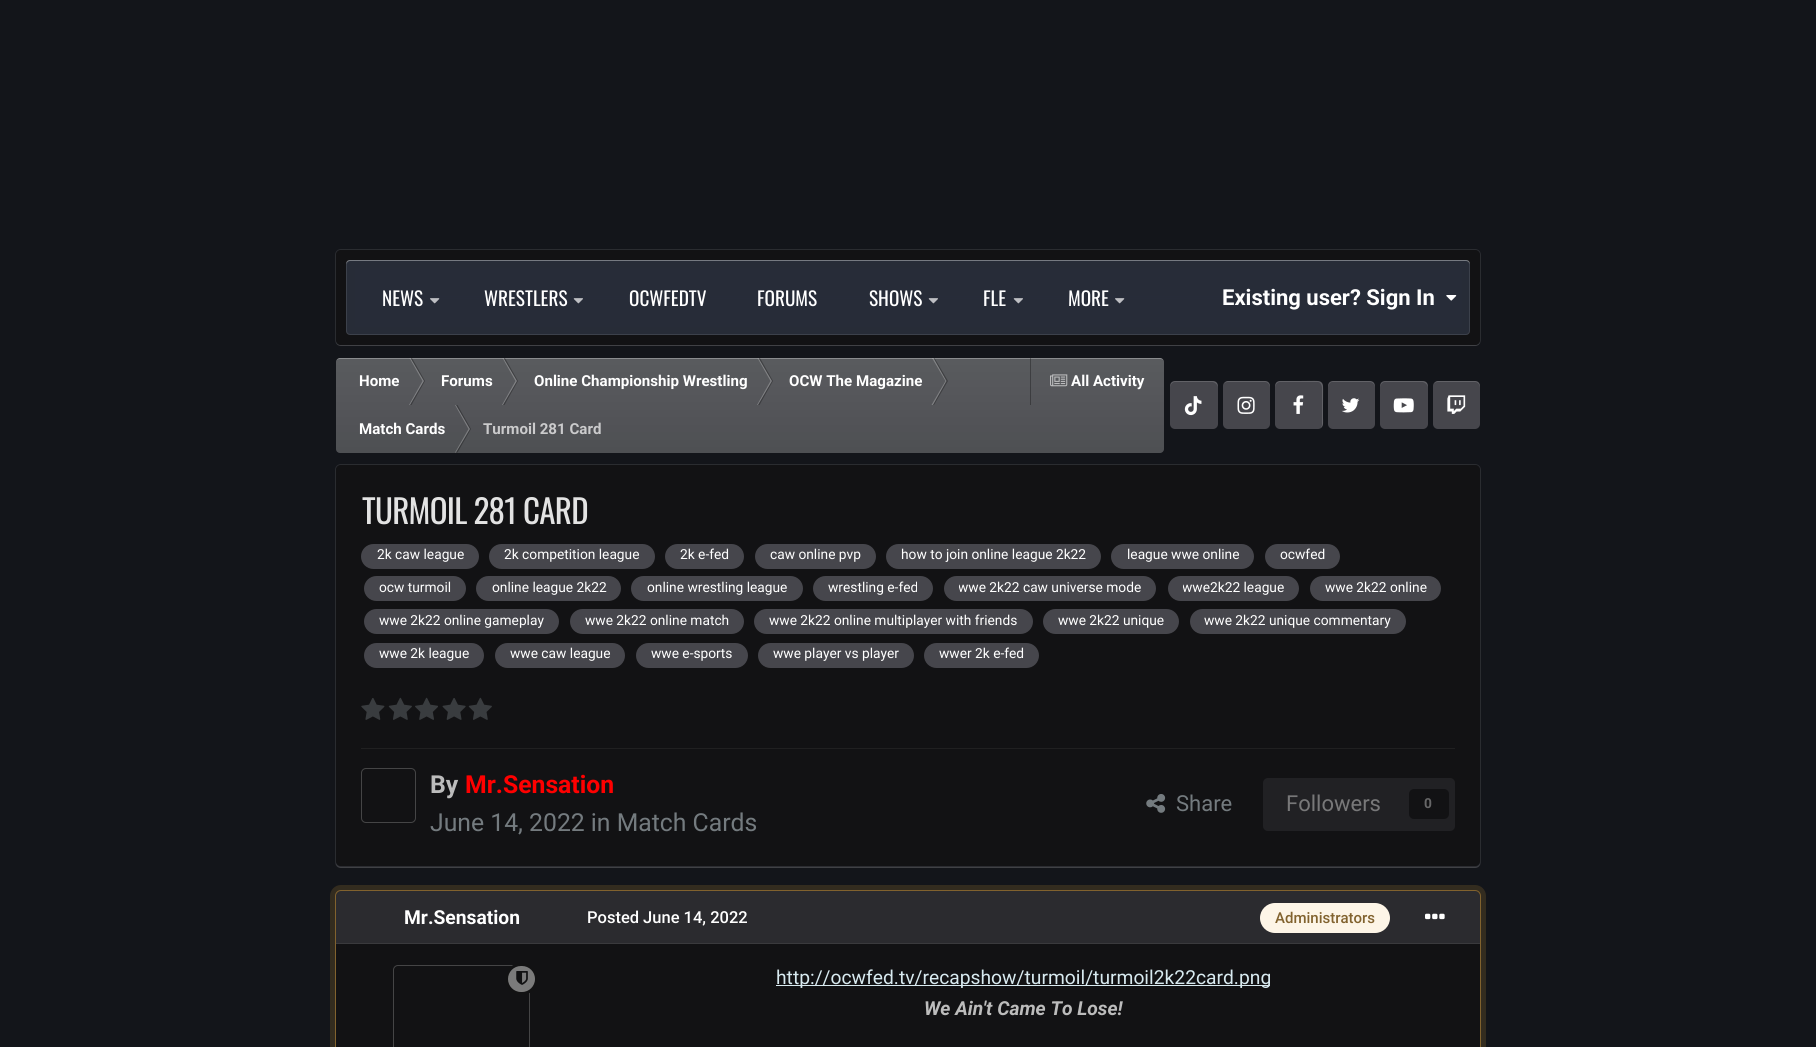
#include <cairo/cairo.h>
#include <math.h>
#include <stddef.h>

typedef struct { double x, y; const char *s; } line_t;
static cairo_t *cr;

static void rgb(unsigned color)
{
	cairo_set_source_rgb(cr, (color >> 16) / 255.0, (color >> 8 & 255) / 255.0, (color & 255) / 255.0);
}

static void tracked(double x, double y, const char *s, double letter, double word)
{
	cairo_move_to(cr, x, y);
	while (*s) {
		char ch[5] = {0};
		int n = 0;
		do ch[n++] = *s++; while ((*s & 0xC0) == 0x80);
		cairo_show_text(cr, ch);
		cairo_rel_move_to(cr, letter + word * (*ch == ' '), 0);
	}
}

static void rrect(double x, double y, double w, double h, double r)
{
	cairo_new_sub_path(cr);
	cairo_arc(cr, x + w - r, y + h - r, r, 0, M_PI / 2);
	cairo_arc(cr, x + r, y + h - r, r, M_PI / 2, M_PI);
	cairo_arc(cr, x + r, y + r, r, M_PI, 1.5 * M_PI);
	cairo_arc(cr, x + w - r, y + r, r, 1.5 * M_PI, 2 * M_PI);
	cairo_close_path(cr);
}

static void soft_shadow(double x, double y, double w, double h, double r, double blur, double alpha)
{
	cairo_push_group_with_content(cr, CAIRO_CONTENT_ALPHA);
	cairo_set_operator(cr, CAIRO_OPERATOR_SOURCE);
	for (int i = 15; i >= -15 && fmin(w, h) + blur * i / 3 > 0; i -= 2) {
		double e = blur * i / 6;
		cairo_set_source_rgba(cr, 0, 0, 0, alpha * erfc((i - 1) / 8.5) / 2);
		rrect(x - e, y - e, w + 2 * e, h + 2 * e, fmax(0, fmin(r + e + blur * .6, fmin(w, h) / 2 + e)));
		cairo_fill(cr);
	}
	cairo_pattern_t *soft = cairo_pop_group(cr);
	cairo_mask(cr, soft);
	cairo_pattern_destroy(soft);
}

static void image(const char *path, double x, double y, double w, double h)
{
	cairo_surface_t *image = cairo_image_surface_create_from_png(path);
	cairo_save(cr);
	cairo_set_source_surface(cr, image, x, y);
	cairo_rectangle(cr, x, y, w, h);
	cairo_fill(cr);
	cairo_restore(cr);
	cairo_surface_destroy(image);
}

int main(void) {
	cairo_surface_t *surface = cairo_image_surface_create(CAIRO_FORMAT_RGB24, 1816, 1047);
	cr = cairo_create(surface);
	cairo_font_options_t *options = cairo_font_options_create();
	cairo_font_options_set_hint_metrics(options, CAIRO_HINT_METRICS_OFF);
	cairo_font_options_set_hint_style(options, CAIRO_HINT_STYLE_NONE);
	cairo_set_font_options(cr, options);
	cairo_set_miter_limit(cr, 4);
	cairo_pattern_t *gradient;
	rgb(0x13151a);
	cairo_paint(cr);
	rgb(0x2b2c31);
	cairo_new_path(cr);
	cairo_move_to(cr, 336, 254);
	cairo_line_to(cr, 336, 341);
	cairo_curve_to(cr, 336, 344, 338, 346, 341, 346);
	cairo_line_to(cr, 1475, 346);
	cairo_curve_to(cr, 1478, 346, 1480, 344, 1480, 341);
	cairo_line_to(cr, 1480, 340);
	cairo_curve_to(cr, 1480, 343, 1478, 345, 1475, 345);
	cairo_line_to(cr, 341, 345);
	cairo_curve_to(cr, 338, 345, 336, 343, 336, 340);
	cairo_close_path(cr);
	cairo_fill(cr);
	rrect(335.5, 249.5, 1145, 96, 5.5);
	cairo_set_source_rgba(cr, 1, 1, 1, 0.1);
	cairo_set_line_width(cr, 1);
	cairo_stroke(cr);
	cairo_set_source_rgba(cr, 0.071, 0.071, 0.075, 0.85);
	rrect(336, 250, 1144, 95, 5);
	cairo_fill(cr);
	gradient = cairo_pattern_create_linear(750, 357, 750, 453);
	cairo_pattern_add_color_stop_rgba(gradient, 0, 1, 1, 1, 0.3);
	cairo_pattern_add_color_stop_rgba(gradient, 1, 1, 1, 1, 0.25);
	cairo_set_source(cr, gradient);
	cairo_pattern_destroy(gradient);
	rrect(336, 358, 828, 95, 4);
	cairo_fill(cr);
	cairo_set_source_rgba(cr, 1, 1, 1, 0.3);
	cairo_new_path(cr);
	cairo_move_to(cr, 340, 359);
	cairo_line_to(cr, 1160, 359);
	cairo_curve_to(cr, 1162, 359, 1164, 360, 1164, 362);
	cairo_curve_to(cr, 1164, 360, 1162, 358, 1160, 358);
	cairo_line_to(cr, 340, 358);
	cairo_curve_to(cr, 338, 358, 336, 360, 336, 362);
	cairo_curve_to(cr, 336, 360, 338, 359, 340, 359);
	cairo_close_path(cr);
	cairo_fill(cr);
	cairo_set_source_rgba(cr, 1, 1, 1, 0.25);
	cairo_new_path(cr);
	cairo_move_to(cr, 410.5, 358);
	cairo_line_to(cr, 409.5, 358);
	cairo_line_to(cr, 422.5, 381);
	cairo_line_to(cr, 424, 381);
	cairo_close_path(cr);
	cairo_fill(cr);
	cairo_set_source_rgba(cr, 0, 0, 0, 0.3);
	cairo_new_path(cr);
	cairo_move_to(cr, 412, 358);
	cairo_line_to(cr, 410.5, 358);
	cairo_line_to(cr, 424, 381);
	cairo_line_to(cr, 425, 381);
	cairo_close_path(cr);
	cairo_fill(cr);
	cairo_set_source_rgba(cr, 1, 1, 1, 0.25);
	cairo_new_path(cr);
	cairo_move_to(cr, 409, 405);
	cairo_line_to(cr, 410, 405);
	cairo_line_to(cr, 424, 381);
	cairo_line_to(cr, 422.5, 381);
	cairo_close_path(cr);
	cairo_fill(cr);
	cairo_set_source_rgba(cr, 0, 0, 0, 0.3);
	cairo_new_path(cr);
	cairo_move_to(cr, 410, 405);
	cairo_line_to(cr, 411.5, 405);
	cairo_line_to(cr, 425, 381);
	cairo_line_to(cr, 424, 381);
	cairo_close_path(cr);
	cairo_fill(cr);
	cairo_set_source_rgba(cr, 1, 1, 1, 0.25);
	cairo_new_path(cr);
	cairo_move_to(cr, 503.5, 358);
	cairo_line_to(cr, 502.5, 358);
	cairo_line_to(cr, 515.5, 381);
	cairo_line_to(cr, 517, 381);
	cairo_close_path(cr);
	cairo_fill(cr);
	cairo_set_source_rgba(cr, 0, 0, 0, 0.3);
	cairo_new_path(cr);
	cairo_move_to(cr, 505, 358);
	cairo_line_to(cr, 503.5, 358);
	cairo_line_to(cr, 517, 381);
	cairo_line_to(cr, 518, 381);
	cairo_close_path(cr);
	cairo_fill(cr);
	cairo_set_source_rgba(cr, 1, 1, 1, 0.25);
	cairo_new_path(cr);
	cairo_move_to(cr, 502, 405);
	cairo_line_to(cr, 503, 405);
	cairo_line_to(cr, 517, 381);
	cairo_line_to(cr, 515.5, 381);
	cairo_close_path(cr);
	cairo_fill(cr);
	cairo_set_source_rgba(cr, 0, 0, 0, 0.3);
	cairo_new_path(cr);
	cairo_move_to(cr, 503, 405);
	cairo_line_to(cr, 504.5, 405);
	cairo_line_to(cr, 518, 381);
	cairo_line_to(cr, 517, 381);
	cairo_close_path(cr);
	cairo_fill(cr);
	cairo_set_source_rgba(cr, 1, 1, 1, 0.25);
	cairo_new_path(cr);
	cairo_move_to(cr, 758.5, 358);
	cairo_line_to(cr, 757.5, 358);
	cairo_line_to(cr, 770.5, 381);
	cairo_line_to(cr, 772, 381);
	cairo_close_path(cr);
	cairo_fill(cr);
	cairo_set_source_rgba(cr, 0, 0, 0, 0.3);
	cairo_new_path(cr);
	cairo_move_to(cr, 760, 358);
	cairo_line_to(cr, 758.5, 358);
	cairo_line_to(cr, 772, 381);
	cairo_line_to(cr, 773, 381);
	cairo_close_path(cr);
	cairo_fill(cr);
	cairo_set_source_rgba(cr, 1, 1, 1, 0.25);
	cairo_new_path(cr);
	cairo_move_to(cr, 757, 405);
	cairo_line_to(cr, 758, 405);
	cairo_line_to(cr, 772, 381);
	cairo_line_to(cr, 770.5, 381);
	cairo_close_path(cr);
	cairo_fill(cr);
	cairo_set_source_rgba(cr, 0, 0, 0, 0.3);
	cairo_new_path(cr);
	cairo_move_to(cr, 758, 405);
	cairo_line_to(cr, 759.5, 405);
	cairo_line_to(cr, 773, 381);
	cairo_line_to(cr, 772, 381);
	cairo_close_path(cr);
	cairo_fill(cr);
	cairo_set_source_rgba(cr, 1, 1, 1, 0.25);
	cairo_new_path(cr);
	cairo_move_to(cr, 933.5, 358);
	cairo_line_to(cr, 932, 358);
	cairo_line_to(cr, 945.5, 381);
	cairo_line_to(cr, 946.5, 381);
	cairo_close_path(cr);
	cairo_fill(cr);
	cairo_set_source_rgba(cr, 0, 0, 0, 0.3);
	cairo_new_path(cr);
	cairo_move_to(cr, 934.5, 358);
	cairo_line_to(cr, 933.5, 358);
	cairo_line_to(cr, 946.5, 381);
	cairo_line_to(cr, 948, 381);
	cairo_close_path(cr);
	cairo_fill(cr);
	cairo_set_source_rgba(cr, 1, 1, 1, 0.25);
	cairo_new_path(cr);
	cairo_move_to(cr, 931.5, 405);
	cairo_line_to(cr, 933, 405);
	cairo_line_to(cr, 946.5, 381);
	cairo_line_to(cr, 945.5, 381);
	cairo_close_path(cr);
	cairo_fill(cr);
	cairo_set_source_rgba(cr, 0, 0, 0, 0.3);
	cairo_new_path(cr);
	cairo_move_to(cr, 933, 405);
	cairo_line_to(cr, 934, 405);
	cairo_line_to(cr, 948, 381);
	cairo_line_to(cr, 946.5, 381);
	cairo_close_path(cr);
	cairo_fill(cr);
	cairo_set_source_rgba(cr, 1, 1, 1, 0.25);
	cairo_new_path(cr);
	cairo_move_to(cr, 455, 405);
	cairo_line_to(cr, 456, 405);
	cairo_line_to(cr, 470, 429);
	cairo_line_to(cr, 468.5, 429);
	cairo_close_path(cr);
	cairo_fill(cr);
	cairo_set_source_rgba(cr, 0, 0, 0, 0.3);
	cairo_new_path(cr);
	cairo_move_to(cr, 456, 405);
	cairo_line_to(cr, 457.5, 405);
	cairo_line_to(cr, 471, 429);
	cairo_line_to(cr, 470, 429);
	cairo_close_path(cr);
	cairo_fill(cr);
	cairo_set_source_rgba(cr, 1, 1, 1, 0.25);
	cairo_new_path(cr);
	cairo_move_to(cr, 455, 452.5);
	cairo_line_to(cr, 456, 452.5);
	cairo_line_to(cr, 470, 429);
	cairo_line_to(cr, 468.5, 429);
	cairo_close_path(cr);
	cairo_fill(cr);
	cairo_set_source_rgba(cr, 0, 0, 0, 0.3);
	cairo_new_path(cr);
	cairo_move_to(cr, 456, 452.5);
	cairo_line_to(cr, 457.5, 452.5);
	cairo_line_to(cr, 471, 429);
	cairo_line_to(cr, 470, 429);
	cairo_close_path(cr);
	cairo_fill(cr);
	cairo_rectangle(cr, 1030, 358, 1, 47);
	cairo_fill(cr);
	image("img/4.png", 1050, 374, 18, 13);
	rgb(0x46464c);
	rrect(1170, 381, 48, 48, 5);
	cairo_fill(cr);
	cairo_set_source_rgba(cr, 1, 1, 1, 0.15);
	cairo_new_path(cr);
	cairo_move_to(cr, 1175, 382);
	cairo_curve_to(cr, 1172, 382, 1170, 385, 1170, 388);
	cairo_curve_to(cr, 1170, 380, 1174, 381, 1181, 381);
	cairo_line_to(cr, 1207, 381);
	cairo_curve_to(cr, 1214, 381, 1218, 380, 1218, 388);
	cairo_curve_to(cr, 1218, 385, 1215, 382, 1212, 382);
	cairo_close_path(cr);
	cairo_fill(cr);
	image("img/5.png", 1184, 396, 18, 20);
	rgb(0x46464c);
	rrect(1223, 381, 47, 48, 5);
	cairo_fill(cr);
	cairo_set_source_rgba(cr, 1, 1, 1, 0.15);
	cairo_new_path(cr);
	cairo_move_to(cr, 1228, 382);
	cairo_line_to(cr, 1265, 382);
	cairo_curve_to(cr, 1268, 382, 1270, 385, 1270, 388);
	cairo_line_to(cr, 1270, 386);
	cairo_curve_to(cr, 1270, 383, 1268, 381, 1265, 381);
	cairo_line_to(cr, 1228, 381);
	cairo_curve_to(cr, 1226, 381, 1224, 383, 1223, 385);
	cairo_curve_to(cr, 1224, 383, 1226, 382, 1228, 382);
	cairo_close_path(cr);
	cairo_fill(cr);
	image("img/6.png", 1237, 396, 18, 18);
	rgb(0x46464c);
	rrect(1275, 381, 48, 48, 5);
	cairo_fill(cr);
	image("img/7.png", 1293, 395, 11, 19);
	cairo_set_source_rgba(cr, 1, 1, 1, 0.15);
	cairo_new_path(cr);
	cairo_move_to(cr, 1280, 382);
	cairo_curve_to(cr, 1277, 382, 1275, 385, 1275, 388);
	cairo_curve_to(cr, 1275, 380, 1279, 381, 1286, 381);
	cairo_line_to(cr, 1299, 381);
	cairo_curve_to(cr, 1327, 381, 1323, 377, 1323, 405);
	cairo_line_to(cr, 1323, 418);
	cairo_curve_to(cr, 1323, 421, 1324, 425, 1321, 428);
	cairo_line_to(cr, 1322, 425);
	cairo_line_to(cr, 1322, 388);
	cairo_curve_to(cr, 1322, 385, 1320, 382, 1318, 382);
	cairo_close_path(cr);
	cairo_fill(cr);
	rgb(0x46464c);
	rrect(1328, 381, 47, 48, 5);
	cairo_fill(cr);
	cairo_set_source_rgba(cr, 1, 1, 1, 0.15);
	cairo_new_path(cr);
	cairo_move_to(cr, 1332, 382);
	cairo_curve_to(cr, 1330, 382, 1328, 385, 1328, 388);
	cairo_curve_to(cr, 1328, 380, 1332, 381, 1339, 381);
	cairo_line_to(cr, 1364, 381);
	cairo_curve_to(cr, 1371, 381, 1375, 380, 1375, 388);
	cairo_curve_to(cr, 1375, 385, 1373, 382, 1370, 382);
	cairo_close_path(cr);
	cairo_fill(cr);
	image("img/8.png", 1341, 398, 19, 15);
	rgb(0x46464c);
	rrect(1380, 381, 48, 48, 5);
	cairo_fill(cr);
	cairo_set_source_rgba(cr, 1, 1, 1, 0.15);
	cairo_new_path(cr);
	cairo_move_to(cr, 1385, 382);
	cairo_curve_to(cr, 1382, 382, 1380, 385, 1380, 388);
	cairo_curve_to(cr, 1380, 380, 1384, 381, 1391, 381);
	cairo_line_to(cr, 1417, 381);
	cairo_curve_to(cr, 1424, 381, 1428, 380, 1428, 388);
	cairo_curve_to(cr, 1428, 385, 1425, 382, 1422, 382);
	cairo_close_path(cr);
	cairo_fill(cr);
	image("img/9.png", 1393, 398, 21, 15);
	rgb(0x46464c);
	rrect(1433, 381, 47, 48, 5);
	cairo_fill(cr);
	cairo_set_source_rgba(cr, 1, 1, 1, 0.15);
	cairo_new_path(cr);
	cairo_move_to(cr, 1438, 382);
	cairo_line_to(cr, 1475, 382);
	cairo_curve_to(cr, 1478, 382, 1480, 385, 1480, 388);
	cairo_line_to(cr, 1480, 386);
	cairo_curve_to(cr, 1480, 383, 1478, 381, 1475, 381);
	cairo_line_to(cr, 1438, 381);
	cairo_curve_to(cr, 1436, 381, 1434, 383, 1433, 385);
	cairo_curve_to(cr, 1434, 383, 1436, 382, 1438, 382);
	cairo_close_path(cr);
	cairo_fill(cr);
	image("img/10.png", 1447, 395, 19, 19);
	rgb(0x2b2c31);
	cairo_new_path(cr);
	cairo_move_to(cr, 336, 469);
	cairo_line_to(cr, 336, 863);
	cairo_curve_to(cr, 336, 866, 338, 868, 341, 868);
	cairo_line_to(cr, 1475, 868);
	cairo_curve_to(cr, 1478, 868, 1480, 866, 1480, 863);
	cairo_line_to(cr, 1480, 861);
	cairo_curve_to(cr, 1480, 864, 1478, 866, 1475, 866);
	cairo_line_to(cr, 341, 866);
	cairo_curve_to(cr, 338, 866, 336, 864, 336, 861);
	cairo_close_path(cr);
	cairo_fill(cr);
	rrect(335.5, 464.5, 1145, 403, 5.5);
	cairo_set_source_rgba(cr, 1, 1, 1, 0.1);
	cairo_stroke(cr);
	cairo_set_source_rgba(cr, 0.071, 0.071, 0.075, 0.85);
	rrect(336, 465, 1144, 401, 5);
	cairo_fill(cr);
	cairo_save(cr);
	rrect(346, 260, 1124, 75, 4);
	cairo_clip(cr);
	rgb(0x0f1523);
	soft_shadow(303, 216, 1211, 163, 0, 44, 1);
	cairo_restore(cr);
	cairo_set_source_rgba(cr, 1, 1, 1, 0.1);
	rrect(346, 260, 1124, 75, 4);
	cairo_fill(cr);
	cairo_set_source_rgba(cr, 1, 1, 1, 0.3);
	cairo_new_path(cr);
	cairo_move_to(cr, 350, 261);
	cairo_curve_to(cr, 348, 261, 346, 263, 346, 265);
	cairo_curve_to(cr, 346, 262, 347, 260, 350, 260);
	cairo_line_to(cr, 1466, 260);
	cairo_curve_to(cr, 1469, 260, 1470, 262, 1470, 265);
	cairo_curve_to(cr, 1470, 263, 1468, 261, 1466, 261);
	cairo_close_path(cr);
	cairo_fill(cr);
	rrect(346.5, 260.5, 1123, 74, 3.5);
	cairo_set_source_rgba(cr, 1, 1, 1, 0.1);
	cairo_stroke(cr);
	image("img/1.png", 430, 298, 10, 6);
	image("img/2.png", 573, 298, 10, 6);
	image("img/2.png", 928, 298, 10, 6);
	image("img/2.png", 1013, 298, 10, 6);
	image("img/1.png", 1115, 298, 10, 6);
	image("img/3.png", 1446, 295, 11, 6);
	rgb(0x46464c);
	rrect(361, 544, 118, 25, 12.5);
	cairo_fill(cr);
	rrect(489, 544, 166, 25, 12.5);
	cairo_fill(cr);
	rrect(665, 544, 79, 25, 12.5);
	cairo_fill(cr);
	rrect(755, 544, 121, 25, 12.5);
	cairo_fill(cr);
	rrect(886, 544, 215, 25, 12.5);
	cairo_fill(cr);
	rrect(1111, 544, 143, 25, 12.5);
	cairo_fill(cr);
	rrect(1265, 544, 75, 25, 12.5);
	cairo_fill(cr);
	rrect(364, 576, 102, 25, 12.5);
	cairo_fill(cr);
	rrect(476, 576, 145, 25, 12.5);
	cairo_fill(cr);
	rrect(631, 576, 172, 25, 12.5);
	cairo_fill(cr);
	rrect(813, 576, 120, 25, 12.5);
	cairo_fill(cr);
	rrect(944, 576, 212, 25, 12.5);
	cairo_fill(cr);
	rrect(1168, 576, 131, 25, 12.5);
	cairo_fill(cr);
	rrect(1310, 576, 131, 25, 12.5);
	cairo_fill(cr);
	rrect(364, 609, 195, 25, 12.5);
	cairo_fill(cr);
	rrect(570, 609, 174, 25, 12.5);
	cairo_fill(cr);
	rrect(754, 609, 279, 25, 12.5);
	cairo_fill(cr);
	rrect(1043, 609, 136, 25, 12.5);
	cairo_fill(cr);
	rrect(1190, 609, 216, 25, 12.5);
	cairo_fill(cr);
	rrect(364, 643, 120, 25, 12.5);
	cairo_fill(cr);
	rrect(495, 643, 130, 25, 12.5);
	cairo_fill(cr);
	rrect(636, 643, 112, 25, 12.5);
	cairo_fill(cr);
	rrect(758, 643, 156, 25, 12.5);
	cairo_fill(cr);
	rrect(924, 643, 115, 25, 12.5);
	cairo_fill(cr);
	image("img/11.png", 361, 698, 24, 22);
	image("img/12.png", 388, 697, 24, 23);
	image("img/13.png", 415, 697, 23, 23);
	image("img/14.png", 442, 698, 24, 22);
	image("img/12.png", 468, 697, 24, 23);
	rgb(0x202021);
	cairo_rectangle(cr, 361, 748, 1094, 1);
	cairo_fill(cr);
	rrect(361.5, 768.5, 54, 54, 4.5);
	rgb(0x454546);
	cairo_stroke(cr);
	image("img/15.png", 1146, 794, 20, 19);
	rgb(0x212124);
	rrect(1263, 778, 192, 53, 5);
	cairo_fill(cr);
	rgb(0x121214);
	rrect(1409, 789, 40, 30, 5);
	cairo_fill(cr);
	rrect(336, 891, 1144, 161, 5);
	cairo_fill(cr);
	rgb(0x2b2b2f);
	cairo_new_path(cr);
	cairo_move_to(cr, 341, 891);
	cairo_line_to(cr, 1475, 891);
	cairo_curve_to(cr, 1478, 891, 1480, 893, 1480, 896);
	cairo_line_to(cr, 1480, 944);
	cairo_line_to(cr, 336, 944);
	cairo_line_to(cr, 336, 896);
	cairo_curve_to(cr, 336, 893, 338, 891, 341, 891);
	cairo_close_path(cr);
	cairo_fill(cr);
	rgb(0x3a3a3d);
	cairo_rectangle(cr, 336, 943, 1144, 1);
	cairo_fill(cr);
	rrect(393.5, 965.5, 136, 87, 4.5);
	rgb(0x454546);
	cairo_stroke(cr);
	rgb(0x7b7b7b);
	rrect(506.5, 964.5, 30, 29, 14.5);
	cairo_fill_preserve(cr);
	rgb(0x121213);
	cairo_set_line_width(cr, 3);
	cairo_stroke(cr);
	image("img/16.png", 516, 971, 12, 14);
	rgb(0xd8eaf0);
	cairo_rectangle(cr, 776, 985, 494, 1);
	cairo_fill(cr);
	rrect(333, 888, 1150, 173, 8);
	cairo_set_source_rgba(cr, 0.506, 0.384, 0.18, 0.3);
	cairo_set_line_width(cr, 6);
	cairo_stroke(cr);
	rrect(335.5, 890.5, 1145, 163, 5.5);
	rgb(0x81622e);
	cairo_set_line_width(cr, 1);
	cairo_stroke(cr);
	rgb(0xfdf5e7);
	rrect(1260, 903, 130, 30, 15);
	cairo_fill(cr);
	image("img/17.png", 1425, 913, 20, 7);
	cairo_select_font_face(cr, "Oswald", CAIRO_FONT_SLANT_NORMAL, CAIRO_FONT_WEIGHT_NORMAL);
	cairo_set_font_size(cr, 19.25);
	rgb(0xffffff);
	{
		static const line_t items[] = {
			{382, 306, "NEWS"},
			{484, 306, "WRESTLERS"},
			{629, 306, "OCWFEDTV"},
			{757, 306, "FORUMS"},
			{869, 306, "SHOWS"},
			{983, 306, "FLE"},
			{1068, 306, "MORE"},
		};
		for (size_t i = 0; i < sizeof items / sizeof *items; i++) {
			cairo_move_to(cr, items[i].x, items[i].y);
			cairo_show_text(cr, items[i].s);
		}
	}
	cairo_select_font_face(cr, "Roboto", CAIRO_FONT_SLANT_NORMAL, CAIRO_FONT_WEIGHT_BOLD);
	cairo_set_font_size(cr, 22);
	cairo_move_to(cr, 1222, 305);
	cairo_show_text(cr, "Existing user? Sign In");
	cairo_set_font_size(cr, 15.1);
	{
		static const line_t items[] = {
			{359, 386, "Home"},
			{441, 386, "Forums"},
			{534, 386, "Online Championship Wrestling"},
			{789, 386, "OCW The Magazine"},
			{359, 434, "Match Cards"},
		};
		for (size_t i = 0; i < sizeof items / sizeof *items; i++) {
			cairo_move_to(cr, items[i].x, items[i].y);
			cairo_show_text(cr, items[i].s);
		}
	}
	rgb(0xcbcbcc);
	cairo_move_to(cr, 483, 434);
	cairo_show_text(cr, "Turmoil 281 Card");
	rgb(0xffffff);
	cairo_move_to(cr, 1071, 386);
	cairo_show_text(cr, "All Activity");
	cairo_select_font_face(cr, "Oswald", CAIRO_FONT_SLANT_NORMAL, CAIRO_FONT_WEIGHT_NORMAL);
	cairo_set_font_size(cr, 33);
	rgb(0xe3e3e3);
	tracked(362, 524, "TURMOIL 281 CARD", -0.7, 0);
	cairo_select_font_face(cr, "Roboto", CAIRO_FONT_SLANT_NORMAL, CAIRO_FONT_WEIGHT_NORMAL);
	cairo_set_font_size(cr, 13.75);
	rgb(0xffffff);
	{
		static const line_t items[] = {
			{377, 559, "2k caw league"},
			{504, 559, "2k competition league"},
			{680, 559, "2k e-fed"},
			{770, 559, "caw online pvp"},
			{901, 559, "how to join online league 2k22"},
			{1127, 559, "league wwe online"},
			{1280, 559, "ocwfed"},
			{379, 592, "ocw turmoil"},
			{492, 592, "online league 2k22"},
			{647, 592, "online wrestling league"},
			{828, 592, "wrestling e-fed"},
		};
		for (size_t i = 0; i < sizeof items / sizeof *items; i++) {
			cairo_move_to(cr, items[i].x, items[i].y);
			cairo_show_text(cr, items[i].s);
		}
	}
	cairo_save(cr);
	cairo_rectangle(cr, 959, 576, 182, 25);
	cairo_clip(cr);
	cairo_move_to(cr, 958, 592);
	cairo_show_text(cr, "wwe 2k22 caw universe mode");
	cairo_restore(cr);
	cairo_save(cr);
	cairo_rectangle(cr, 1183, 576, 101, 25);
	cairo_clip(cr);
	cairo_move_to(cr, 1182, 592);
	cairo_show_text(cr, "wwe2k22 league");
	cairo_restore(cr);
	{
		static const line_t items[] = {
			{1325, 592, "wwe 2k22 online"},
			{379, 625, "wwe 2k22 online gameplay"},
			{585, 625, "wwe 2k22 online match"},
			{769, 625, "wwe 2k22 online multiplayer with friends"},
			{1058, 625, "wwe 2k22 unique"},
			{1204, 625, "wwe 2k22 unique commentary"},
			{379, 658, "wwe 2k league"},
			{510, 658, "wwe caw league"},
			{651, 658, "wwe e-sports"},
			{773, 658, "wwe player vs player"},
			{939, 658, "wwer 2k e-fed"},
		};
		for (size_t i = 0; i < sizeof items / sizeof *items; i++) {
			cairo_move_to(cr, items[i].x, items[i].y);
			cairo_show_text(cr, items[i].s);
		}
	}
	cairo_select_font_face(cr, "Roboto", CAIRO_FONT_SLANT_NORMAL, CAIRO_FONT_WEIGHT_BOLD);
	cairo_set_font_size(cr, 24.75);
	rgb(0xbcbcbc);
	cairo_move_to(cr, 430, 793);
	cairo_show_text(cr, "By");
	rgb(0xff0000);
	cairo_move_to(cr, 465, 793);
	cairo_show_text(cr, "Mr.Sensation");
	cairo_select_font_face(cr, "Roboto", CAIRO_FONT_SLANT_NORMAL, CAIRO_FONT_WEIGHT_NORMAL);
	rgb(0x747b7f);
	cairo_move_to(cr, 430, 831);
	cairo_show_text(cr, "June 14, 2022 in Match Cards");
	cairo_set_font_size(cr, 22);
	cairo_move_to(cr, 1176, 811);
	cairo_show_text(cr, "Share");
	rgb(0x787879);
	cairo_move_to(cr, 1286, 811);
	cairo_show_text(cr, "Followers");
	cairo_select_font_face(cr, "Roboto", CAIRO_FONT_SLANT_NORMAL, CAIRO_FONT_WEIGHT_BOLD);
	cairo_set_font_size(cr, 13.75);
	rgb(0x676768);
	cairo_move_to(cr, 1424, 808);
	cairo_show_text(cr, "0");
	cairo_set_font_size(cr, 19.25);
	rgb(0xffffff);
	cairo_move_to(cr, 404, 924);
	cairo_show_text(cr, "Mr.Sensation");
	cairo_select_font_face(cr, "Roboto Medium", CAIRO_FONT_SLANT_NORMAL, CAIRO_FONT_WEIGHT_NORMAL);
	cairo_set_font_size(cr, 16.5);
	cairo_move_to(cr, 587, 923);
	cairo_show_text(cr, "Posted June 14, 2022");
	cairo_set_font_size(cr, 15);
	rgb(0x81622e);
	cairo_move_to(cr, 1275, 923);
	cairo_show_text(cr, "Administrators");
	cairo_select_font_face(cr, "Roboto", CAIRO_FONT_SLANT_NORMAL, CAIRO_FONT_WEIGHT_NORMAL);
	cairo_set_font_size(cr, 19.25);
	rgb(0xd8eaf0);
	cairo_move_to(cr, 776, 984);
	cairo_show_text(cr, "http://ocwfed.tv/recapshow/turmoil/turmoil2k22card.png");
	cairo_select_font_face(cr, "Roboto", CAIRO_FONT_SLANT_ITALIC, CAIRO_FONT_WEIGHT_BOLD);
	rgb(0xbcbcbc);
	cairo_move_to(cr, 924, 1015);
	cairo_show_text(cr, "We Ain't Came To Lose!");
	cairo_surface_write_to_png(surface, "page.png");
	cairo_font_options_destroy(options);
	cairo_destroy(cr);
	cairo_surface_destroy(surface);
	return 0;
}
